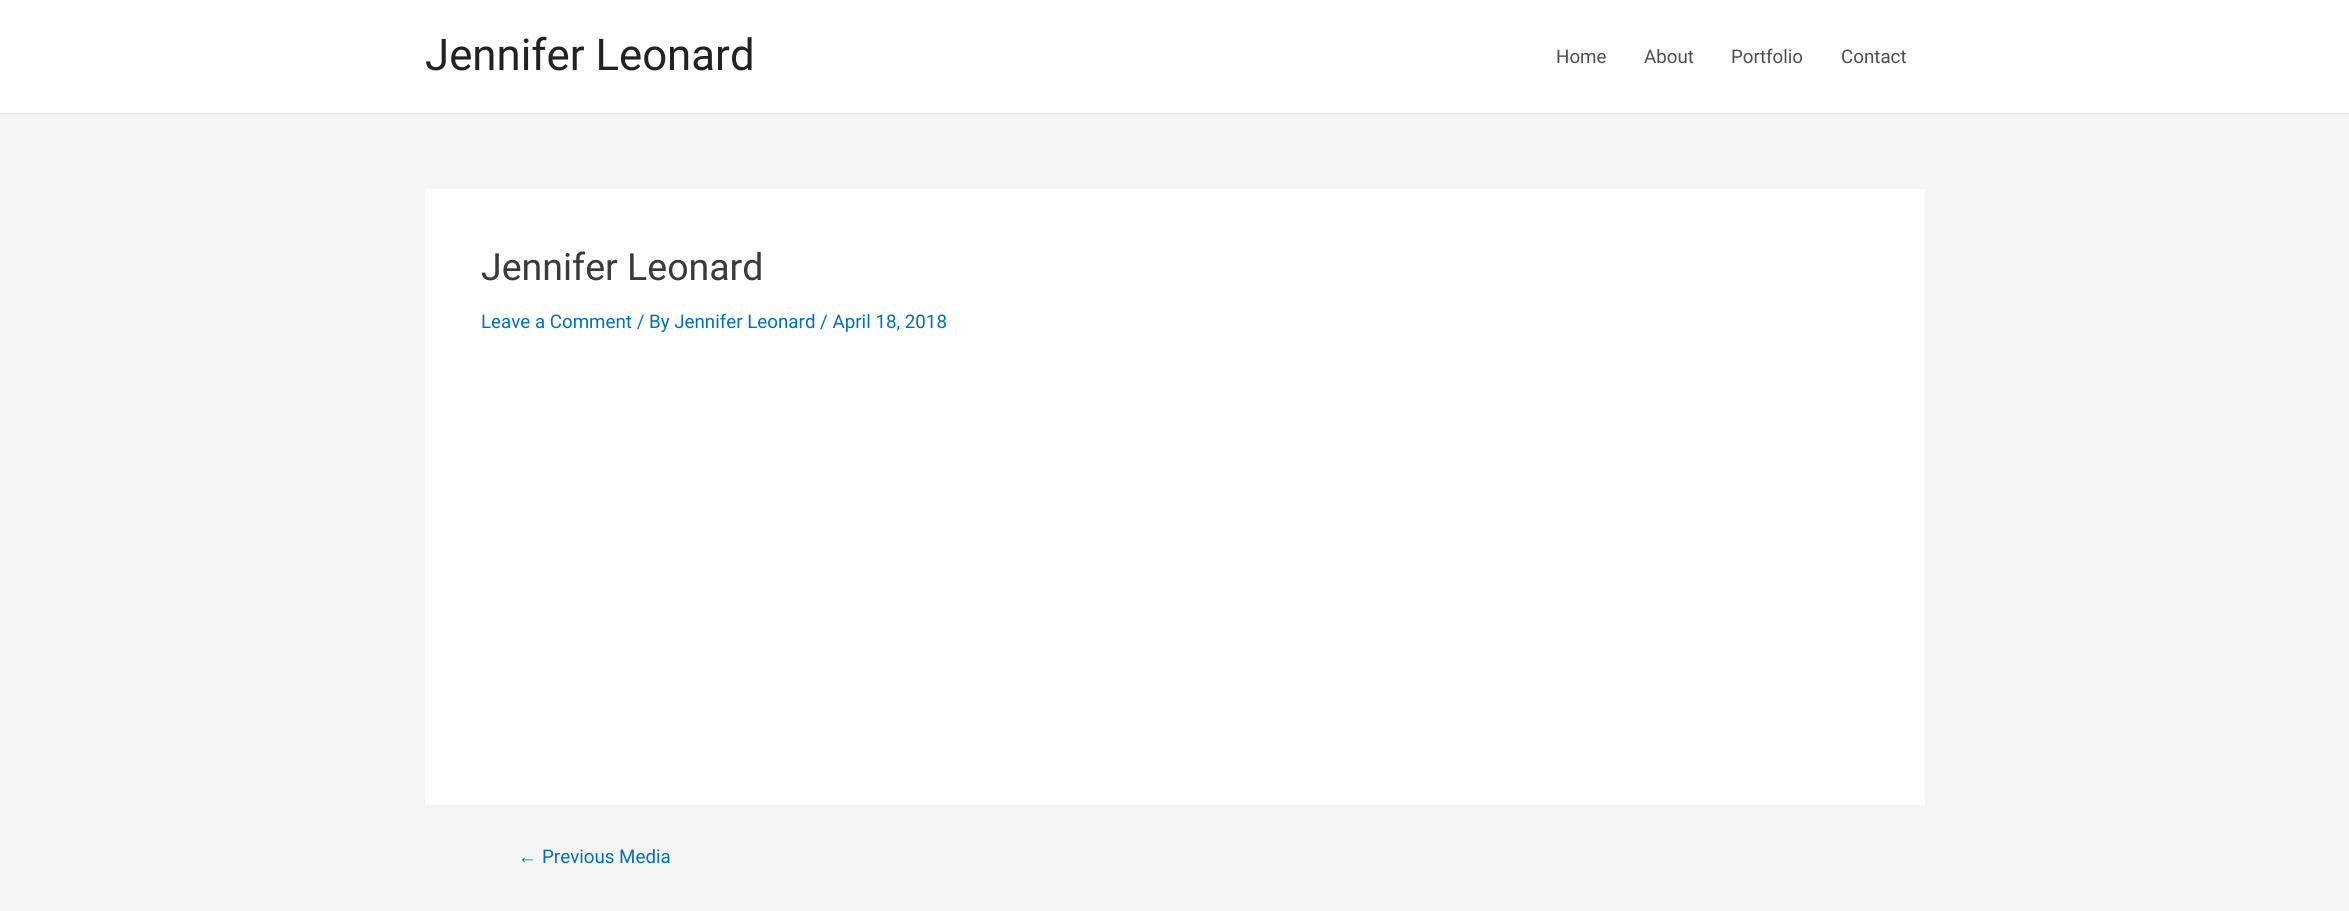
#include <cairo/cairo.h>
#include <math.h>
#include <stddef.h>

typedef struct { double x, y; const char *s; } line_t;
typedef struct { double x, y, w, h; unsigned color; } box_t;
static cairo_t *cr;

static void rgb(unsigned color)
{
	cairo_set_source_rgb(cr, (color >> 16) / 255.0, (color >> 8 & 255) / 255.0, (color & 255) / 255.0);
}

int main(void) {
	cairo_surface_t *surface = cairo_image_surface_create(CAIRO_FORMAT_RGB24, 2349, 911);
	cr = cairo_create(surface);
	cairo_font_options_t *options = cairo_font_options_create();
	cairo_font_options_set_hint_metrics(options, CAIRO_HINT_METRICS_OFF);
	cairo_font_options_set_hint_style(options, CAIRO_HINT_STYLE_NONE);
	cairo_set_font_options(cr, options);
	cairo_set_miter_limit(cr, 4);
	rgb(0xf5f5f5);
	cairo_paint(cr);
	{
		static const box_t items[] = {
			{0, 0, 2349, 113, 0xffffff},
			{0, 113, 2349, 1, 0xe5e5e5},
			{425, 189, 1500, 616, 0xffffff},
		};
		for (size_t i = 0; i < sizeof items / sizeof *items; i++) {
			rgb(items[i].color);
			cairo_rectangle(cr, items[i].x, items[i].y, items[i].w, items[i].h);
			cairo_fill(cr);
		}
	}
	cairo_select_font_face(cr, "Roboto", CAIRO_FONT_SLANT_NORMAL, CAIRO_FONT_WEIGHT_NORMAL);
	cairo_set_font_size(cr, 43.75);
	rgb(0x222222);
	cairo_move_to(cr, 425, 70);
	cairo_show_text(cr, "Jennifer Leonard");
	cairo_set_font_size(cr, 18.75);
	rgb(0x4b4f58);
	{
		static const line_t items[] = {
			{1556, 63, "Home"},
			{1644, 63, "About"},
			{1731, 63, "Portfolio"},
			{1841, 63, "Contact"},
		};
		for (size_t i = 0; i < sizeof items / sizeof *items; i++) {
			cairo_move_to(cr, items[i].x, items[i].y);
			cairo_show_text(cr, items[i].s);
		}
	}
	cairo_set_font_size(cr, 37.5);
	rgb(0x3a3a3a);
	cairo_move_to(cr, 481, 280);
	cairo_show_text(cr, "Jennifer Leonard");
	cairo_set_font_size(cr, 18.75);
	rgb(0x0170b9);
	cairo_move_to(cr, 481, 328);
	cairo_show_text(cr, "Leave a Comment / By Jennifer Leonard / April 18, 2018");
	cairo_select_font_face(cr, "Liberation Sans", CAIRO_FONT_SLANT_NORMAL, CAIRO_FONT_WEIGHT_NORMAL);
	cairo_move_to(cr, 518, 863);
	cairo_show_text(cr, "←");
	cairo_select_font_face(cr, "Roboto", CAIRO_FONT_SLANT_NORMAL, CAIRO_FONT_WEIGHT_NORMAL);
	cairo_move_to(cr, 542, 863);
	cairo_show_text(cr, "Previous Media");
	cairo_surface_write_to_png(surface, "page.png");
	cairo_font_options_destroy(options);
	cairo_destroy(cr);
	cairo_surface_destroy(surface);
	return 0;
}
